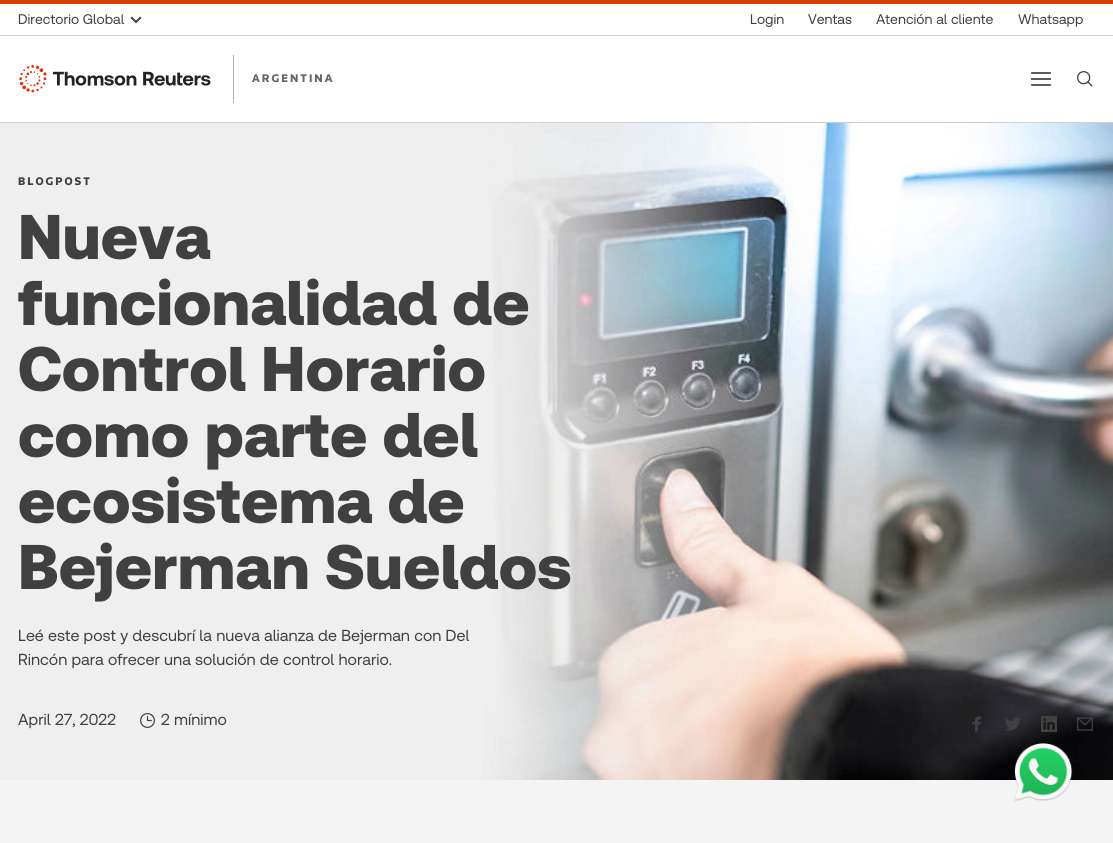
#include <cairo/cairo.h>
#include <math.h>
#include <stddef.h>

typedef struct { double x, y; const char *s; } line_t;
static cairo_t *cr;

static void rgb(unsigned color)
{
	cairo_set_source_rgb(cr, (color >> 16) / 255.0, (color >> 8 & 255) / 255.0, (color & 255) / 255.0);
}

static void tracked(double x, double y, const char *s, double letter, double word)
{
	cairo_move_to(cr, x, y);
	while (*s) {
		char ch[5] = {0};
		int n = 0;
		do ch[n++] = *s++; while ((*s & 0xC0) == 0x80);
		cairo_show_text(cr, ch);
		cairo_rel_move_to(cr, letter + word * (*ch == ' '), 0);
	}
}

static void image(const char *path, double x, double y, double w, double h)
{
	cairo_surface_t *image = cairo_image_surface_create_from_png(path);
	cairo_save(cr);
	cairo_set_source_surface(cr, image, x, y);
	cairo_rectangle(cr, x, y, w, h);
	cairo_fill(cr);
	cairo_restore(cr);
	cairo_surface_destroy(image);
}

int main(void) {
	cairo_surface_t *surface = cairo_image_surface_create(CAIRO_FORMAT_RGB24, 1113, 843);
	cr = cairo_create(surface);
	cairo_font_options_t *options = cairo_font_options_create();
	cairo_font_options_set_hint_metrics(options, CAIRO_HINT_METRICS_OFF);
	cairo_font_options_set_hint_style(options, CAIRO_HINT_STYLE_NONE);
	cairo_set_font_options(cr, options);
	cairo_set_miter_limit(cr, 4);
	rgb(0xffffff);
	cairo_paint(cr);
	rgb(0xd64000);
	cairo_rectangle(cr, 0, 0, 1113, 4);
	cairo_fill(cr);
	rgb(0xd0d0d0);
	cairo_rectangle(cr, 0, 35, 1113, 1);
	cairo_fill(cr);
	cairo_new_path(cr);
	cairo_move_to(cr, 140, 18);
	cairo_line_to(cr, 136, 22);
	cairo_line_to(cr, 132, 18);
	rgb(0x404040);
	cairo_set_line_cap(cr, CAIRO_LINE_CAP_SQUARE);
	cairo_stroke(cr);
	rgb(0xd0d0d0);
	cairo_rectangle(cr, 0, 122, 1113, 1);
	cairo_fill(cr);
	image("img/1.png", 19, 65, 192, 28);
	rgb(0xafafaf);
	cairo_rectangle(cr, 233, 55, 1, 48);
	cairo_fill(cr);
	rgb(0x5d5d5d);
	cairo_rectangle(cr, 1031, 78, 20, 2);
	cairo_fill(cr);
	cairo_new_path(cr);
	cairo_move_to(cr, 1032, 73);
	cairo_line_to(cr, 1050, 73);
	cairo_move_to(cr, 1032, 85);
	cairo_line_to(cr, 1050, 85);
	rgb(0x404040);
	cairo_set_line_width(cr, 1.7);
	cairo_stroke(cr);
	image("img/2.png", 1077, 71, 16, 16);
	image("img/3.png", 0, 123, 1113, 657);
	image("img/4.png", 140, 713, 15, 15);
	image("img/5.png", 972, 716, 10, 16);
	image("img/6.png", 1005, 717, 16, 14);
	image("img/7.png", 1041, 716, 16, 16);
	image("img/8.png", 1077, 717, 16, 14);
	rgb(0xf4f4f4);
	cairo_rectangle(cr, 0, 780, 1113, 63);
	cairo_fill(cr);
	image("img/9.png", 1014, 743, 59, 58);
	cairo_select_font_face(cr, "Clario", CAIRO_FONT_SLANT_NORMAL, CAIRO_FONT_WEIGHT_NORMAL);
	cairo_set_font_size(cr, 14);
	rgb(0x404040);
	{
		static const line_t items[] = {
			{18, 24, "Directorio Global"},
			{750, 24, "Login"},
			{808, 24, "Ventas"},
			{876, 24, "Atención al cliente"},
			{1018, 24, "Whatsapp"},
		};
		for (size_t i = 0; i < sizeof items / sizeof *items; i++) {
			cairo_move_to(cr, items[i].x, items[i].y);
			cairo_show_text(cr, items[i].s);
		}
	}
	cairo_select_font_face(cr, "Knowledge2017 Black", CAIRO_FONT_SLANT_NORMAL, CAIRO_FONT_WEIGHT_NORMAL);
	cairo_set_font_size(cr, 11.5);
	rgb(0x666666);
	tracked(252, 82, "ARGENTINA", 2, 0);
	rgb(0x404040);
	tracked(18, 185, "BLOGPOST", 2, 0);
	cairo_select_font_face(cr, "Clario Black", CAIRO_FONT_SLANT_NORMAL, CAIRO_FONT_WEIGHT_NORMAL);
	cairo_set_font_size(cr, 63);
	{
		static const line_t items[] = {
			{18, 259, "Nueva"},
			{18, 325, "funcionalidad de"},
			{18, 391, "Control Horario"},
			{18, 457, "como parte del"},
			{18, 523, "ecosistema de"},
			{18, 589, "Bejerman Sueldos"},
		};
		for (size_t i = 0; i < sizeof items / sizeof *items; i++) {
			cairo_move_to(cr, items[i].x, items[i].y);
			cairo_show_text(cr, items[i].s);
		}
	}
	cairo_select_font_face(cr, "Clario", CAIRO_FONT_SLANT_NORMAL, CAIRO_FONT_WEIGHT_NORMAL);
	cairo_set_font_size(cr, 16);
	{
		static const line_t items[] = {
			{18, 641, "Leé este post y descubrí la nueva alianza de Bejerman con Del"},
			{18, 665, "Rincón para ofrecer una solución de control horario."},
			{18, 725, "April 27, 2022"},
			{161, 725, "2 mínimo"},
		};
		for (size_t i = 0; i < sizeof items / sizeof *items; i++) {
			cairo_move_to(cr, items[i].x, items[i].y);
			cairo_show_text(cr, items[i].s);
		}
	}
	cairo_surface_write_to_png(surface, "page.png");
	cairo_font_options_destroy(options);
	cairo_destroy(cr);
	cairo_surface_destroy(surface);
	return 0;
}
